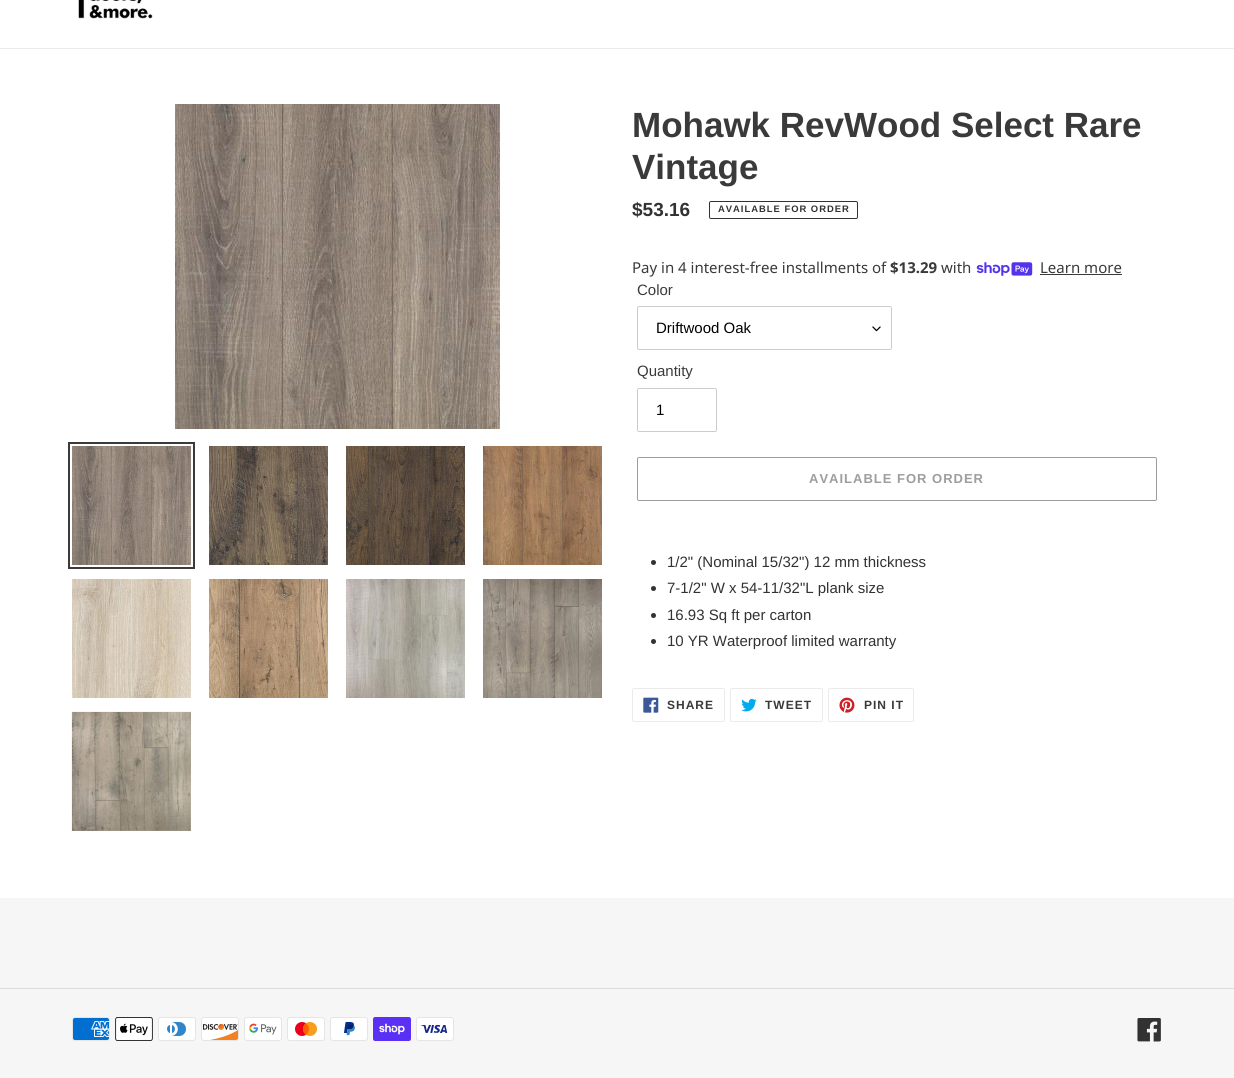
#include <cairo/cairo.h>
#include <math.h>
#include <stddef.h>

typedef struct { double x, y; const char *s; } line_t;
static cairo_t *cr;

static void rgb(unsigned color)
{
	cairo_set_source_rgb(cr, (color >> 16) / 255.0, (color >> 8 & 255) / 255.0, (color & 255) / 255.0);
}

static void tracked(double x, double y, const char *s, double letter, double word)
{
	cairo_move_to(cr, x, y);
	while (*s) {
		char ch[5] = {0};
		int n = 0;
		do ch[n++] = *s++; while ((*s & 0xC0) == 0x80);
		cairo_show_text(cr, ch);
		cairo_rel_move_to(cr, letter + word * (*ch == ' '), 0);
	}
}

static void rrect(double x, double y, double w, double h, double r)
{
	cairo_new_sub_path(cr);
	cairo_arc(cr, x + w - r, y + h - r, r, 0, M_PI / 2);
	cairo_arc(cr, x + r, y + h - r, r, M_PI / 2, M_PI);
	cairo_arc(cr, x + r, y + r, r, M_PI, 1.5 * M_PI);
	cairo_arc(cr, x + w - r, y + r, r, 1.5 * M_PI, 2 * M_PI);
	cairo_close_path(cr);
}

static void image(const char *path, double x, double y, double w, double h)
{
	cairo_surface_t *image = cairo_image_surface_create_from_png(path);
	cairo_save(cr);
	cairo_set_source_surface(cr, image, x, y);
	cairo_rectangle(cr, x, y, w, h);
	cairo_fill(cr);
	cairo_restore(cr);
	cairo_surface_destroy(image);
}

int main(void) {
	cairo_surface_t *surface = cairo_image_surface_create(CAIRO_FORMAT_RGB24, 1234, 1078);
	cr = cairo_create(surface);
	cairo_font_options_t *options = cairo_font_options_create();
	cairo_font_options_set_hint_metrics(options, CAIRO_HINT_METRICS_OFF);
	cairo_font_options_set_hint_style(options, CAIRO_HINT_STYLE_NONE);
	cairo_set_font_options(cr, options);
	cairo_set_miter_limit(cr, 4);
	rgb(0xffffff);
	cairo_paint(cr);
	rgb(0xebebeb);
	cairo_rectangle(cr, 0, 48, 1234, 1);
	cairo_fill(cr);
	image("img/1.png", 78, 0, 75, 19);
	image("img/2.png", 175, 104, 325, 325);
	cairo_rectangle(cr, 69, 443, 125, 125);
	rgb(0x3a3a3a);
	cairo_stroke(cr);
	image("img/3.png", 72, 446, 119, 119);
	image("img/4.png", 209, 446, 119, 119);
	image("img/5.png", 346, 446, 119, 119);
	image("img/6.png", 483, 446, 119, 119);
	image("img/7.png", 72, 579, 119, 119);
	image("img/8.png", 209, 579, 119, 119);
	image("img/9.png", 346, 579, 119, 119);
	image("img/10.png", 483, 579, 119, 119);
	image("img/11.png", 71, 711, 120, 120);
	rrect(709.5, 201.5, 148, 17, 1.5);
	rgb(0x333232);
	cairo_set_line_width(cr, 1);
	cairo_stroke(cr);
	image("img/12.png", 976, 262, 57, 14);
	rgb(0x3a3a3a);
	cairo_rectangle(cr, 1040, 274, 82, 1);
	cairo_fill(cr);
	image("img/13.png", 872, 326, 9, 6);
	rrect(637.5, 306.5, 254, 43, 1.5);
	rgb(0xcccccc);
	cairo_stroke(cr);
	rrect(637.5, 388.5, 79, 43, 1.5);
	cairo_stroke(cr);
	rrect(637.5, 457.5, 519, 43, 1.5);
	rgb(0x9d9d9d);
	cairo_stroke(cr);
	rgb(0x333232);
	cairo_arc(cr, 653.5, 562.5, 2.5, 0, 2 * M_PI);
	cairo_fill(cr);
	cairo_arc(cr, 653.5, 588.5, 2.5, 0, 2 * M_PI);
	cairo_fill(cr);
	cairo_arc(cr, 653.5, 615.5, 2.5, 0, 2 * M_PI);
	cairo_fill(cr);
	cairo_arc(cr, 653.5, 641.5, 2.5, 0, 2 * M_PI);
	cairo_fill(cr);
	rrect(632.5, 688.5, 92, 33, 1.5);
	rgb(0xebebeb);
	cairo_stroke(cr);
	image("img/14.png", 643, 697, 16, 16);
	rrect(730.5, 688.5, 92, 33, 1.5);
	cairo_stroke(cr);
	image("img/15.png", 741, 698, 16, 14);
	rrect(828.5, 688.5, 85, 33, 1.5);
	cairo_stroke(cr);
	image("img/16.png", 839, 697, 16, 16);
	rgb(0xf6f6f6);
	cairo_rectangle(cr, 0, 898, 1234, 180);
	cairo_fill(cr);
	rgb(0xdddddd);
	cairo_rectangle(cr, 0, 988, 1234, 1);
	cairo_fill(cr);
	image("img/17.png", 72, 1017, 38, 24);
	image("img/18.png", 115, 1017, 38, 24);
	image("img/19.png", 158, 1017, 38, 24);
	image("img/20.png", 201, 1017, 38, 24);
	image("img/21.png", 244, 1017, 38, 24);
	image("img/22.png", 287, 1017, 38, 24);
	image("img/23.png", 330, 1017, 38, 24);
	image("img/24.png", 373, 1017, 38, 24);
	image("img/25.png", 416, 1017, 38, 24);
	image("img/26.png", 1137, 1018, 24, 24);
	cairo_select_font_face(cr, "Liberation Sans", CAIRO_FONT_SLANT_NORMAL, CAIRO_FONT_WEIGHT_BOLD);
	cairo_set_font_size(cr, 35);
	rgb(0x3a3a3a);
	cairo_move_to(cr, 632, 137);
	cairo_show_text(cr, "Mohawk RevWood Select Rare");
	cairo_move_to(cr, 632, 179);
	cairo_show_text(cr, "Vintage");
	cairo_set_font_size(cr, 19);
	rgb(0x333232);
	cairo_move_to(cr, 632, 216);
	cairo_show_text(cr, "$53.16");
	cairo_set_font_size(cr, 9.4);
	tracked(718, 212, "AVAILABLE FOR ORDER", 1, 0);
	cairo_select_font_face(cr, "Noto Sans", CAIRO_FONT_SLANT_NORMAL, CAIRO_FONT_WEIGHT_NORMAL);
	cairo_set_font_size(cr, 15);
	rgb(0x3a3a3a);
	cairo_move_to(cr, 632, 273);
	cairo_show_text(cr, "Pay in 4 interest-free installments of");
	cairo_select_font_face(cr, "Noto Sans", CAIRO_FONT_SLANT_NORMAL, CAIRO_FONT_WEIGHT_BOLD);
	cairo_move_to(cr, 890, 273);
	cairo_show_text(cr, "$13.29");
	cairo_select_font_face(cr, "Noto Sans", CAIRO_FONT_SLANT_NORMAL, CAIRO_FONT_WEIGHT_NORMAL);
	cairo_move_to(cr, 941, 273);
	cairo_show_text(cr, "with");
	cairo_move_to(cr, 1040, 273);
	cairo_show_text(cr, "Learn more");
	cairo_select_font_face(cr, "Liberation Sans", CAIRO_FONT_SLANT_NORMAL, CAIRO_FONT_WEIGHT_NORMAL);
	cairo_move_to(cr, 637, 295);
	cairo_show_text(cr, "Color");
	rgb(0x000000);
	cairo_move_to(cr, 656, 333);
	cairo_show_text(cr, "Driftwood Oak");
	rgb(0x3a3a3a);
	cairo_move_to(cr, 637, 376);
	cairo_show_text(cr, "Quantity");
	rgb(0x000000);
	cairo_move_to(cr, 656, 415);
	cairo_show_text(cr, "1");
	cairo_select_font_face(cr, "Liberation Sans", CAIRO_FONT_SLANT_NORMAL, CAIRO_FONT_WEIGHT_BOLD);
	cairo_set_font_size(cr, 13);
	rgb(0x9d9d9d);
	tracked(809, 483, "AVAILABLE FOR ORDER", 1, 0);
	cairo_select_font_face(cr, "Liberation Sans", CAIRO_FONT_SLANT_NORMAL, CAIRO_FONT_WEIGHT_NORMAL);
	cairo_set_font_size(cr, 15);
	rgb(0x333232);
	{
		static const line_t items[] = {
			{667, 567, "1/2\" (Nominal 15/32\") 12 mm thickness"},
			{667, 593, "7-1/2\" W x 54-11/32\"L plank size"},
			{667, 620, "16.93 Sq ft per carton"},
			{667, 646, "10 YR Waterproof limited warranty"},
		};
		for (size_t i = 0; i < sizeof items / sizeof *items; i++) {
			cairo_move_to(cr, items[i].x, items[i].y);
			cairo_show_text(cr, items[i].s);
		}
	}
	cairo_select_font_face(cr, "Liberation Sans", CAIRO_FONT_SLANT_NORMAL, CAIRO_FONT_WEIGHT_BOLD);
	cairo_set_font_size(cr, 12);
	rgb(0x3a3a3a);
	{
		static const line_t items[] = {
			{667, 709, "SHARE"},
			{765, 709, "TWEET"},
			{864, 709, "PIN IT"},
		};
		for (size_t i = 0; i < sizeof items / sizeof *items; i++) {
			tracked(items[i].x, items[i].y, items[i].s, 1, 0);
		}
	}
	cairo_surface_write_to_png(surface, "page.png");
	cairo_font_options_destroy(options);
	cairo_destroy(cr);
	cairo_surface_destroy(surface);
	return 0;
}
